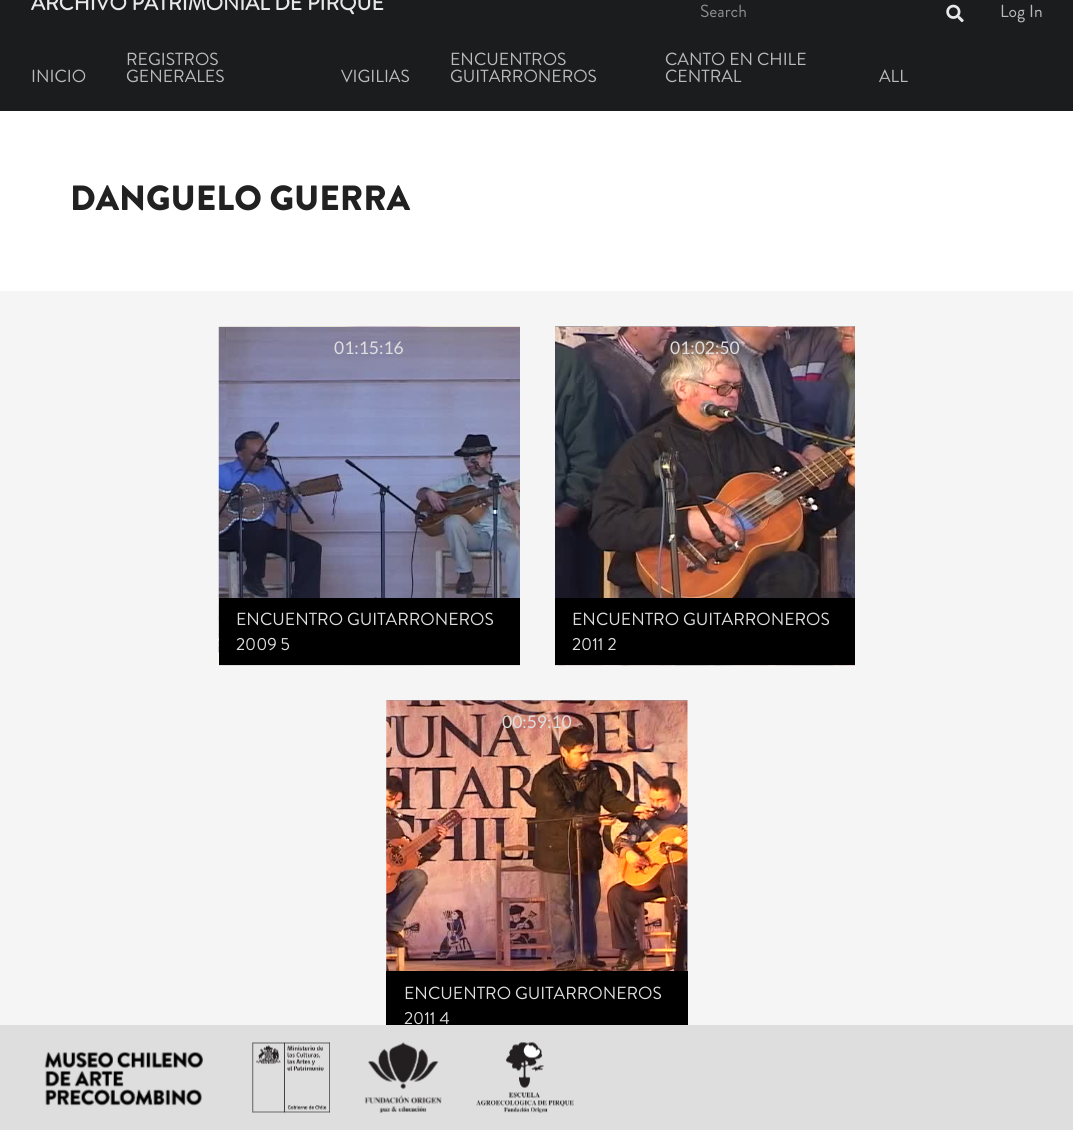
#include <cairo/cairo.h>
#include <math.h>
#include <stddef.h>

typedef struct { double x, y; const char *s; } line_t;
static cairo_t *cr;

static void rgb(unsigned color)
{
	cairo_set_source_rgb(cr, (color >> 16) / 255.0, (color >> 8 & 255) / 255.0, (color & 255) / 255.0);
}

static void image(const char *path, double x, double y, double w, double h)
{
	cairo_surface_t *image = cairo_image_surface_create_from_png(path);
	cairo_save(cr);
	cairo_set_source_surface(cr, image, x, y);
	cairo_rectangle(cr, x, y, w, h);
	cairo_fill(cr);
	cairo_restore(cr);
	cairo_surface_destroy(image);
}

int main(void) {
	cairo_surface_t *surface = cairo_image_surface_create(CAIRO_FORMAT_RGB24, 1073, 1130);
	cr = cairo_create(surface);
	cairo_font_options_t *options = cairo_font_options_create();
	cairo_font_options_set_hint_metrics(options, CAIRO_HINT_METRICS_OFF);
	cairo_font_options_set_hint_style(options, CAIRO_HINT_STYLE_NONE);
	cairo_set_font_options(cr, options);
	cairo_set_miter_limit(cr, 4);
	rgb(0xffffff);
	cairo_paint(cr);
	rgb(0x1b1c1d);
	cairo_rectangle(cr, 0, 0, 1073, 111);
	cairo_fill(cr);
	image("img/1.png", 946, 4, 18, 19);
	rgb(0xf5f5f5);
	cairo_rectangle(cr, 0, 291, 1073, 734);
	cairo_fill(cr);
	image("img/2.png", 218, 326, 302, 340);
	rgb(0x000000);
	cairo_rectangle(cr, 219, 598, 301, 67);
	cairo_fill(cr);
	image("img/3.png", 555, 326, 300, 340);
	cairo_rectangle(cr, 555, 598, 300, 67);
	cairo_fill(cr);
	image("img/4.png", 386, 700, 302, 271);
	cairo_rectangle(cr, 386, 971, 302, 54);
	cairo_fill(cr);
	rgb(0xdedede);
	cairo_rectangle(cr, 0, 1025, 1073, 105);
	cairo_fill(cr);
	image("img/5.png", 44, 1052, 159, 54);
	image("img/6.png", 252, 1042, 78, 71);
	image("img/7.png", 364, 1042, 78, 71);
	image("img/8.png", 476, 1042, 98, 71);
	cairo_select_font_face(cr, "Brandon Grotesque", CAIRO_FONT_SLANT_NORMAL, CAIRO_FONT_WEIGHT_BOLD);
	cairo_set_font_size(cr, 21);
	rgb(0xe8e8e8);
	cairo_move_to(cr, 31, 10);
	cairo_show_text(cr, "ARCHIVO PATRIMONIAL DE PIRQUE");
	cairo_select_font_face(cr, "Brandon Grotesque", CAIRO_FONT_SLANT_NORMAL, CAIRO_FONT_WEIGHT_NORMAL);
	cairo_set_font_size(cr, 17.5);
	rgb(0x8d8e8e);
	cairo_move_to(cr, 700, 17);
	cairo_show_text(cr, "Search");
	rgb(0xbbbbbb);
	{
		static const line_t items[] = {
			{1000, 17, "Log In"},
			{31, 82, "INICIO"},
			{126, 65, "REGISTROS"},
			{126, 82, "GENERALES"},
			{341, 82, "VIGILIAS"},
			{450, 65, "ENCUENTROS"},
			{450, 82, "GUITARRONEROS"},
			{665, 65, "CANTO EN CHILE"},
			{665, 82, "CENTRAL"},
			{879, 82, "ALL"},
		};
		for (size_t i = 0; i < sizeof items / sizeof *items; i++) {
			cairo_move_to(cr, items[i].x, items[i].y);
			cairo_show_text(cr, items[i].s);
		}
	}
	cairo_select_font_face(cr, "Brandon Grotesque Black", CAIRO_FONT_SLANT_NORMAL, CAIRO_FONT_WEIGHT_NORMAL);
	cairo_set_font_size(cr, 35);
	rgb(0x212121);
	cairo_move_to(cr, 70, 210);
	cairo_show_text(cr, "DANGUELO GUERRA");
	cairo_select_font_face(cr, "Lato", CAIRO_FONT_SLANT_NORMAL, CAIRO_FONT_WEIGHT_NORMAL);
	cairo_set_font_size(cr, 17.5);
	rgb(0xdedede);
	cairo_move_to(cr, 334, 354);
	cairo_show_text(cr, "01:15:16");
	cairo_select_font_face(cr, "Brandon Grotesque", CAIRO_FONT_SLANT_NORMAL, CAIRO_FONT_WEIGHT_NORMAL);
	cairo_move_to(cr, 236, 625);
	cairo_show_text(cr, "ENCUENTRO GUITARRONEROS");
	cairo_move_to(cr, 236, 650);
	cairo_show_text(cr, "2009 5");
	cairo_select_font_face(cr, "Lato", CAIRO_FONT_SLANT_NORMAL, CAIRO_FONT_WEIGHT_NORMAL);
	cairo_move_to(cr, 670, 354);
	cairo_show_text(cr, "01:02:50");
	cairo_select_font_face(cr, "Brandon Grotesque", CAIRO_FONT_SLANT_NORMAL, CAIRO_FONT_WEIGHT_NORMAL);
	cairo_move_to(cr, 572, 625);
	cairo_show_text(cr, "ENCUENTRO GUITARRONEROS");
	cairo_move_to(cr, 572, 650);
	cairo_show_text(cr, "2011 2");
	cairo_select_font_face(cr, "Lato", CAIRO_FONT_SLANT_NORMAL, CAIRO_FONT_WEIGHT_NORMAL);
	cairo_move_to(cr, 502, 728);
	cairo_show_text(cr, "00:59:10");
	cairo_select_font_face(cr, "Brandon Grotesque", CAIRO_FONT_SLANT_NORMAL, CAIRO_FONT_WEIGHT_NORMAL);
	cairo_move_to(cr, 404, 999);
	cairo_show_text(cr, "ENCUENTRO GUITARRONEROS");
	cairo_move_to(cr, 404, 1024);
	cairo_show_text(cr, "2011 4");
	cairo_surface_write_to_png(surface, "page.png");
	cairo_font_options_destroy(options);
	cairo_destroy(cr);
	cairo_surface_destroy(surface);
	return 0;
}
